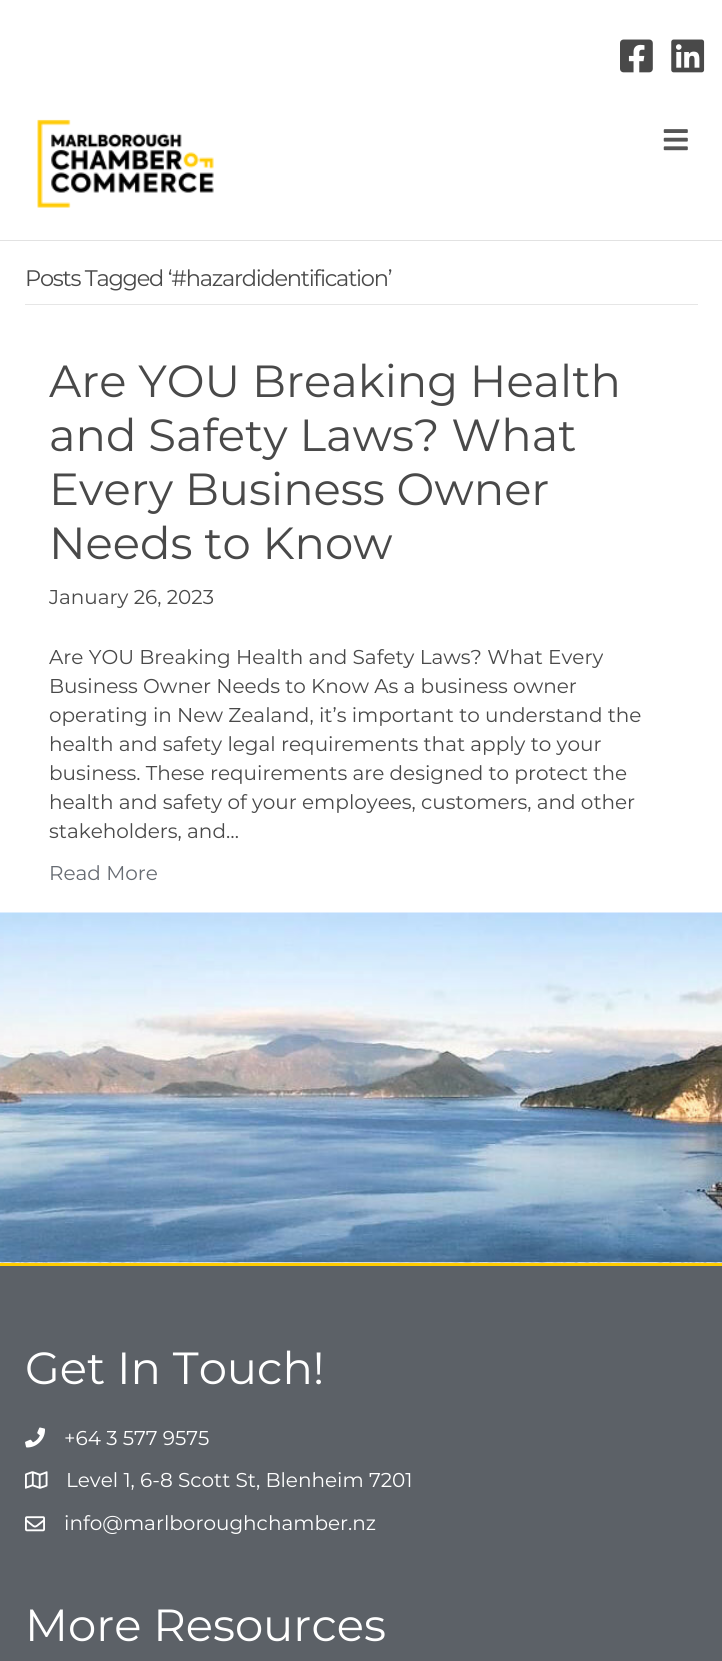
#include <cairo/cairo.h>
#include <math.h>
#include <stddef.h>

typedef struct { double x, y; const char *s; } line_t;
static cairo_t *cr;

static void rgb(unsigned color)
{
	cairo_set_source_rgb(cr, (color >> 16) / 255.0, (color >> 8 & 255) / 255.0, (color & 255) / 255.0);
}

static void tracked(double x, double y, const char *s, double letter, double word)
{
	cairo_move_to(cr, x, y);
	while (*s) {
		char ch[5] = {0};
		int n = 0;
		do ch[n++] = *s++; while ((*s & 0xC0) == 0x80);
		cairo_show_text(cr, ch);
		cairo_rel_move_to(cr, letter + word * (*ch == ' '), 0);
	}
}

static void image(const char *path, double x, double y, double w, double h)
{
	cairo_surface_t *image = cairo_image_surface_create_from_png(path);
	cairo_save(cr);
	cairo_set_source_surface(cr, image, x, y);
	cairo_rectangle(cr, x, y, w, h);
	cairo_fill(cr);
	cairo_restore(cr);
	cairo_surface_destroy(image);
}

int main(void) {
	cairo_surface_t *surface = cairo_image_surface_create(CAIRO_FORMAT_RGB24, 722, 1661);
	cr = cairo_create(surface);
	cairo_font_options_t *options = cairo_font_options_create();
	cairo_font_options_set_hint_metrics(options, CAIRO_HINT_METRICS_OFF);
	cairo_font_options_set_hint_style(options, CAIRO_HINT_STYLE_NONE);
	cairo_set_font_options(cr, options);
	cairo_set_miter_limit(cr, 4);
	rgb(0xffffff);
	cairo_paint(cr);
	image("img/1.png", 620, 39, 33, 34);
	image("img/2.png", 671, 39, 34, 34);
	rgb(0xe2e2e2);
	cairo_rectangle(cr, 0, 240, 722, 1);
	cairo_fill(cr);
	image("img/3.png", 37, 119, 177, 89);
	image("img/4.png", 663, 129, 25, 22);
	rgb(0xe6e6e6);
	cairo_rectangle(cr, 25, 304, 673, 1);
	cairo_fill(cr);
	image("img/5.png", 0, 912, 722, 351);
	image("img/6.png", 0, 1262, 722, 1);
	rgb(0xffcc00);
	cairo_rectangle(cr, 0, 1263, 722, 3);
	cairo_fill(cr);
	rgb(0x5c6167);
	cairo_rectangle(cr, 0, 1266, 722, 395);
	cairo_fill(cr);
	image("img/7.png", 25, 1427, 20, 21);
	image("img/8.png", 25, 1471, 23, 18);
	image("img/9.png", 25, 1516, 20, 16);
	cairo_select_font_face(cr, "Montserrat", CAIRO_FONT_SLANT_NORMAL, CAIRO_FONT_WEIGHT_NORMAL);
	cairo_set_font_size(cr, 22.5);
	rgb(0x494949);
	tracked(25, 286, "Posts Tagged ‘#hazardidentification’", -1.25, 0);
	cairo_set_font_size(cr, 45);
	{
		static const line_t items[] = {
			{49, 397, "Are YOU Breaking Health"},
			{49, 451, "and Safety Laws? What"},
			{49, 505, "Every Business Owner"},
			{49, 559, "Needs to Know"},
		};
		for (size_t i = 0; i < sizeof items / sizeof *items; i++) {
			cairo_move_to(cr, items[i].x, items[i].y);
			cairo_show_text(cr, items[i].s);
		}
	}
	cairo_set_font_size(cr, 20);
	{
		static const line_t items[] = {
			{49, 604, "January 26, 2023"},
			{49, 664, "Are YOU Breaking Health and Safety Laws? What Every"},
			{49, 693, "Business Owner Needs to Know As a business owner"},
			{49, 722, "operating in New Zealand, it’s important to understand the"},
			{49, 751, "health and safety legal requirements that apply to your"},
			{49, 780, "business. These requirements are designed to protect the"},
			{49, 809, "health and safety of your employees, customers, and other"},
			{49, 838, "stakeholders, and…"},
		};
		for (size_t i = 0; i < sizeof items / sizeof *items; i++) {
			cairo_move_to(cr, items[i].x, items[i].y);
			cairo_show_text(cr, items[i].s);
		}
	}
	rgb(0x676c73);
	cairo_move_to(cr, 49, 880);
	cairo_show_text(cr, "Read More");
	cairo_set_font_size(cr, 45);
	rgb(0xffffff);
	cairo_move_to(cr, 25, 1384);
	cairo_show_text(cr, "Get In Touch!");
	cairo_set_font_size(cr, 20);
	{
		static const line_t items[] = {
			{64, 1445, "+64 3 577 9575"},
			{66, 1487, "Level 1, 6-8 Scott St, Blenheim 7201"},
			{64, 1530, "info@marlboroughchamber.nz"},
		};
		for (size_t i = 0; i < sizeof items / sizeof *items; i++) {
			cairo_move_to(cr, items[i].x, items[i].y);
			cairo_show_text(cr, items[i].s);
		}
	}
	cairo_set_font_size(cr, 45);
	cairo_move_to(cr, 25, 1641);
	cairo_show_text(cr, "More Resources");
	cairo_surface_write_to_png(surface, "page.png");
	cairo_font_options_destroy(options);
	cairo_destroy(cr);
	cairo_surface_destroy(surface);
	return 0;
}
